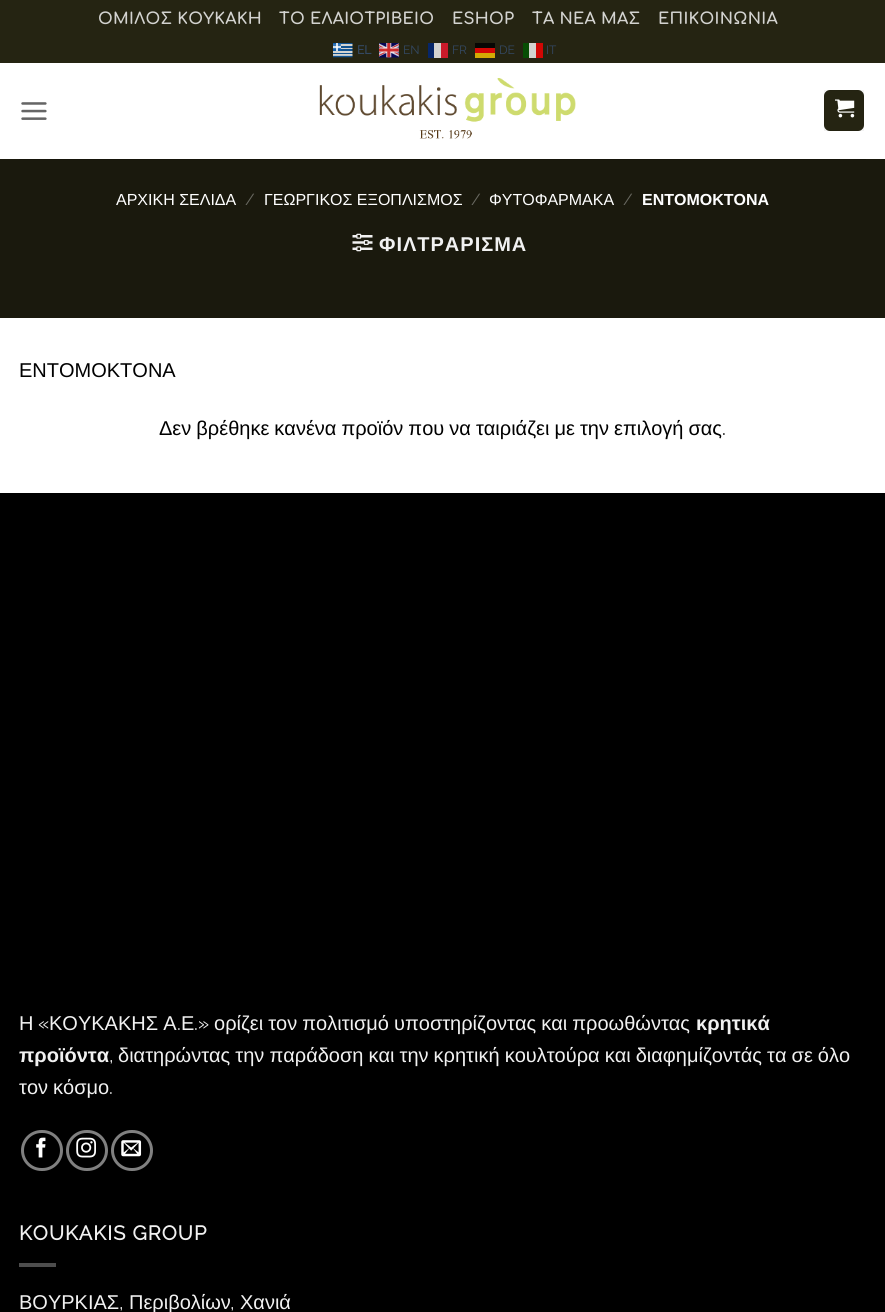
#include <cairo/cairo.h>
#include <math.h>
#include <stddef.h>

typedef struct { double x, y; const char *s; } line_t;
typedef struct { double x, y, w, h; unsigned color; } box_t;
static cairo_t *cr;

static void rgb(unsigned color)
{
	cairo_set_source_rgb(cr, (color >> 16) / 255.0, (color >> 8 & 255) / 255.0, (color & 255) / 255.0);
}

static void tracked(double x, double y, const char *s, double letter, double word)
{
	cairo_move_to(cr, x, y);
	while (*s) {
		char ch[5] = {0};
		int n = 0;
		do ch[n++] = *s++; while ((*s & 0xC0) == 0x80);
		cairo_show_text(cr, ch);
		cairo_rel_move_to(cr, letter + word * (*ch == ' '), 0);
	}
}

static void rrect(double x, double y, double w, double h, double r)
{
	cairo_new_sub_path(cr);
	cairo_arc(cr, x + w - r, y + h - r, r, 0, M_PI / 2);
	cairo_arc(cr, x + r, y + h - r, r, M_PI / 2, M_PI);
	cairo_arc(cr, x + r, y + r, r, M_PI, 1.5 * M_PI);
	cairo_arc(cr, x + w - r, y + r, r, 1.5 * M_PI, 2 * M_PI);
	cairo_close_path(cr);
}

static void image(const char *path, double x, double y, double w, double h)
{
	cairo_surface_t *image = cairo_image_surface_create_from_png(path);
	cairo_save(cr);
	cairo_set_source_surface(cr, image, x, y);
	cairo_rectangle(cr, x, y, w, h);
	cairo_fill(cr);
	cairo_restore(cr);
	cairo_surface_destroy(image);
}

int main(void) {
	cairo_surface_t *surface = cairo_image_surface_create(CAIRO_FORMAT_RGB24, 885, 1312);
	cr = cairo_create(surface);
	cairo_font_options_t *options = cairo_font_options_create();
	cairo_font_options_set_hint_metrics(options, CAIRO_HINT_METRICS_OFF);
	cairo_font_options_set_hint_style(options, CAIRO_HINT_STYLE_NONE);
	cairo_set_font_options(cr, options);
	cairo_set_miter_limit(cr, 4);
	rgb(0xffffff);
	cairo_paint(cr);
	rgb(0x252412);
	cairo_rectangle(cr, 0, 0, 885, 63);
	cairo_fill(cr);
	image("img/1.png", 333, 43, 20, 15);
	image("img/2.png", 379, 43, 20, 15);
	{
		static const box_t items[] = {
			{434, 43, 7, 15, 0xd3d3d0},
			{428, 43, 6, 15, 0x072669},
			{441, 43, 7, 15, 0xca1a2a},
			{475, 53, 20, 5, 0xd3aa04},
			{475, 43, 20, 5, 0x070704},
			{475, 48, 20, 5, 0xd30704},
			{529, 43, 7, 15, 0xd3d3d0},
			{523, 43, 6, 15, 0x074d04},
			{536, 43, 7, 15, 0xd10704},
		};
		for (size_t i = 0; i < sizeof items / sizeof *items; i++) {
			rgb(items[i].color);
			cairo_rectangle(cr, items[i].x, items[i].y, items[i].w, items[i].h);
			cairo_fill(cr);
		}
	}
	image("img/3.png", 21, 102, 26, 18);
	image("img/4.png", 319, 78, 257, 61);
	rgb(0x252412);
	rrect(824, 90, 40, 41, 6);
	cairo_fill(cr);
	cairo_rectangle(cr, 824.5, 90.5, 39, 40);
	cairo_set_source_rgba(cr, 0, 0, 0, 0.05);
	cairo_set_line_width(cr, 1);
	cairo_stroke(cr);
	image("img/5.png", 835, 99, 20, 19);
	rgb(0x1a190d);
	cairo_rectangle(cr, 0, 159, 885, 159);
	cairo_fill(cr);
	rgb(0x16150b);
	cairo_rectangle(cr, 19, 159, 847, 1);
	cairo_fill(cr);
	image("img/6.png", 352, 233, 21, 19);
	rgb(0x000000);
	cairo_rectangle(cr, 0, 493, 885, 819);
	cairo_fill(cr);
	rrect(22.5, 1131.5, 39, 38, 19);
	rgb(0x808080);
	cairo_set_line_width(cr, 3);
	cairo_stroke(cr);
	image("img/7.png", 36, 1137, 10, 21);
	rrect(67.5, 1131.5, 39, 38, 19);
	cairo_stroke(cr);
	image("img/8.png", 76, 1137, 20, 21);
	rrect(112.5, 1131.5, 39, 38, 19);
	cairo_stroke(cr);
	image("img/9.png", 121, 1140, 21, 17);
	rgb(0x4d4d4d);
	cairo_rectangle(cr, 19, 1263, 37, 4);
	cairo_fill(cr);
	cairo_select_font_face(cr, "Comfortaa", CAIRO_FONT_SLANT_NORMAL, CAIRO_FONT_WEIGHT_BOLD);
	cairo_set_font_size(cr, 16);
	rgb(0xd3d3d0);
	{
		static const line_t items[] = {
			{98, 24, "ΟΜΙΛΟΣ ΚΟΥΚΑΚΗ"},
			{279, 24, "ΤΟ ΕΛΑΙΟΤΡΙΒΕΙΟ"},
			{452, 24, "ESHOP"},
			{532, 24, "ΤΑ ΝΕΑ ΜΑΣ"},
			{658, 24, "ΕΠΙΚΟΙΝΩΝΙΑ"},
		};
		for (size_t i = 0; i < sizeof items / sizeof *items; i++) {
			tracked(items[i].x, items[i].y, items[i].s, 0.3, 0);
		}
	}
	cairo_select_font_face(cr, "Raleway", CAIRO_FONT_SLANT_NORMAL, CAIRO_FONT_WEIGHT_BOLD);
	cairo_set_font_size(cr, 12);
	rgb(0x334862);
	cairo_move_to(cr, 357, 54);
	cairo_show_text(cr, "EL");
	cairo_select_font_face(cr, "Raleway Thin", CAIRO_FONT_SLANT_NORMAL, CAIRO_FONT_WEIGHT_NORMAL);
	{
		static const line_t items[] = {
			{403, 54, "EN"},
			{452, 54, "FR"},
			{499, 54, "DE"},
			{546, 54, "IT"},
		};
		for (size_t i = 0; i < sizeof items / sizeof *items; i++) {
			cairo_move_to(cr, items[i].x, items[i].y);
			cairo_show_text(cr, items[i].s);
		}
	}
	cairo_select_font_face(cr, "Liberation Sans", CAIRO_FONT_SLANT_NORMAL, CAIRO_FONT_WEIGHT_NORMAL);
	cairo_set_font_size(cr, 16);
	rgb(0xffffff);
	cairo_move_to(cr, 116, 205);
	cairo_show_text(cr, "ΑΡΧΙΚΗ ΣΕΛΙΔΑ");
	cairo_select_font_face(cr, "Raleway Thin", CAIRO_FONT_SLANT_NORMAL, CAIRO_FONT_WEIGHT_NORMAL);
	rgb(0x6a6a62);
	cairo_move_to(cr, 245, 205);
	cairo_show_text(cr, "/");
	cairo_select_font_face(cr, "Liberation Sans", CAIRO_FONT_SLANT_NORMAL, CAIRO_FONT_WEIGHT_NORMAL);
	rgb(0xffffff);
	cairo_move_to(cr, 264, 205);
	cairo_show_text(cr, "ΓΕΩΡΓΙΚΟΣ ΕΞΟΠΛΙΣΜΟΣ");
	cairo_select_font_face(cr, "Raleway Thin", CAIRO_FONT_SLANT_NORMAL, CAIRO_FONT_WEIGHT_NORMAL);
	rgb(0x6a6a62);
	cairo_move_to(cr, 471, 205);
	cairo_show_text(cr, "/");
	cairo_select_font_face(cr, "Liberation Sans", CAIRO_FONT_SLANT_NORMAL, CAIRO_FONT_WEIGHT_NORMAL);
	rgb(0xffffff);
	cairo_move_to(cr, 489, 205);
	cairo_show_text(cr, "ΦΥΤΟΦΑΡΜΑΚΑ");
	cairo_select_font_face(cr, "Raleway Thin", CAIRO_FONT_SLANT_NORMAL, CAIRO_FONT_WEIGHT_NORMAL);
	rgb(0x6a6a62);
	cairo_move_to(cr, 623, 205);
	cairo_show_text(cr, "/");
	cairo_select_font_face(cr, "Liberation Sans", CAIRO_FONT_SLANT_NORMAL, CAIRO_FONT_WEIGHT_BOLD);
	rgb(0xffffff);
	cairo_move_to(cr, 642, 205);
	cairo_show_text(cr, "ΕΝΤΟΜΟΚΤΟΝΑ");
	cairo_set_font_size(cr, 20);
	rgb(0xf1f1f1);
	tracked(379, 251, "ΦΙΛΤΡΑΡΙΣΜΑ", 1, 0);
	cairo_select_font_face(cr, "Liberation Sans", CAIRO_FONT_SLANT_NORMAL, CAIRO_FONT_WEIGHT_NORMAL);
	rgb(0x000000);
	cairo_move_to(cr, 19, 377);
	cairo_show_text(cr, "ΕΝΤΟΜΟΚΤΟΝΑ");
	tracked(159, 435, "Δεν βρέθηκε κανένα προϊόν που να ταιριάζει με την επιλογή σας", 0, -0.5);
	cairo_select_font_face(cr, "Raleway Thin", CAIRO_FONT_SLANT_NORMAL, CAIRO_FONT_WEIGHT_NORMAL);
	cairo_move_to(cr, 722, 435);
	cairo_show_text(cr, ".");
	cairo_select_font_face(cr, "Liberation Sans", CAIRO_FONT_SLANT_NORMAL, CAIRO_FONT_WEIGHT_NORMAL);
	rgb(0xf1f1f1);
	cairo_move_to(cr, 19, 1030);
	cairo_show_text(cr, "Η");
	cairo_select_font_face(cr, "Raleway Thin", CAIRO_FONT_SLANT_NORMAL, CAIRO_FONT_WEIGHT_NORMAL);
	cairo_move_to(cr, 38, 1030);
	cairo_show_text(cr, "«");
	cairo_select_font_face(cr, "Liberation Sans", CAIRO_FONT_SLANT_NORMAL, CAIRO_FONT_WEIGHT_NORMAL);
	tracked(49, 1030, "ΚΟΥΚΑΚΗΣ Α", 0, -0.5);
	cairo_select_font_face(cr, "Raleway Thin", CAIRO_FONT_SLANT_NORMAL, CAIRO_FONT_WEIGHT_NORMAL);
	cairo_move_to(cr, 177, 1030);
	cairo_show_text(cr, ".");
	cairo_select_font_face(cr, "Liberation Sans", CAIRO_FONT_SLANT_NORMAL, CAIRO_FONT_WEIGHT_NORMAL);
	cairo_move_to(cr, 181, 1030);
	cairo_show_text(cr, "Ε");
	cairo_select_font_face(cr, "Raleway Thin", CAIRO_FONT_SLANT_NORMAL, CAIRO_FONT_WEIGHT_NORMAL);
	cairo_move_to(cr, 194, 1030);
	cairo_show_text(cr, ".»");
	cairo_select_font_face(cr, "Liberation Sans", CAIRO_FONT_SLANT_NORMAL, CAIRO_FONT_WEIGHT_NORMAL);
	tracked(214, 1030, "ορίζει τον πολιτισμό υποστηρίζοντας και προωθώντας", 0, -0.5);
	cairo_select_font_face(cr, "Liberation Sans", CAIRO_FONT_SLANT_NORMAL, CAIRO_FONT_WEIGHT_BOLD);
	cairo_move_to(cr, 696, 1030);
	cairo_show_text(cr, "κρητικά");
	cairo_move_to(cr, 19, 1062);
	cairo_show_text(cr, "προϊόντα");
	cairo_select_font_face(cr, "Raleway Thin", CAIRO_FONT_SLANT_NORMAL, CAIRO_FONT_WEIGHT_NORMAL);
	cairo_move_to(cr, 109, 1062);
	cairo_show_text(cr, ",");
	cairo_select_font_face(cr, "Liberation Sans", CAIRO_FONT_SLANT_NORMAL, CAIRO_FONT_WEIGHT_NORMAL);
	tracked(118, 1062, "διατηρώντας την παράδοση και την κρητική κουλτούρα και διαφημίζοντάς τα σε όλο", 0, -0.5);
	tracked(19, 1094, "τον κόσμο", 0, -0.5);
	cairo_select_font_face(cr, "Raleway Thin", CAIRO_FONT_SLANT_NORMAL, CAIRO_FONT_WEIGHT_NORMAL);
	cairo_move_to(cr, 109, 1094);
	cairo_show_text(cr, ".");
	cairo_select_font_face(cr, "Raleway", CAIRO_FONT_SLANT_NORMAL, CAIRO_FONT_WEIGHT_BOLD);
	tracked(19, 1240, "KOUKAKIS GROUP", 1, 0);
	cairo_select_font_face(cr, "Liberation Sans", CAIRO_FONT_SLANT_NORMAL, CAIRO_FONT_WEIGHT_NORMAL);
	cairo_move_to(cr, 19, 1309);
	cairo_show_text(cr, "ΒΟΥΡΚΙΑΣ");
	cairo_select_font_face(cr, "Raleway Thin", CAIRO_FONT_SLANT_NORMAL, CAIRO_FONT_WEIGHT_NORMAL);
	cairo_move_to(cr, 119, 1309);
	cairo_show_text(cr, ",");
	cairo_select_font_face(cr, "Liberation Sans", CAIRO_FONT_SLANT_NORMAL, CAIRO_FONT_WEIGHT_NORMAL);
	cairo_move_to(cr, 129, 1309);
	cairo_show_text(cr, "Περιβολίων");
	cairo_select_font_face(cr, "Raleway Thin", CAIRO_FONT_SLANT_NORMAL, CAIRO_FONT_WEIGHT_NORMAL);
	cairo_move_to(cr, 230, 1309);
	cairo_show_text(cr, ",");
	cairo_select_font_face(cr, "Liberation Sans", CAIRO_FONT_SLANT_NORMAL, CAIRO_FONT_WEIGHT_NORMAL);
	cairo_move_to(cr, 240, 1309);
	cairo_show_text(cr, "Χανιά");
	cairo_surface_write_to_png(surface, "page.png");
	cairo_font_options_destroy(options);
	cairo_destroy(cr);
	cairo_surface_destroy(surface);
	return 0;
}
